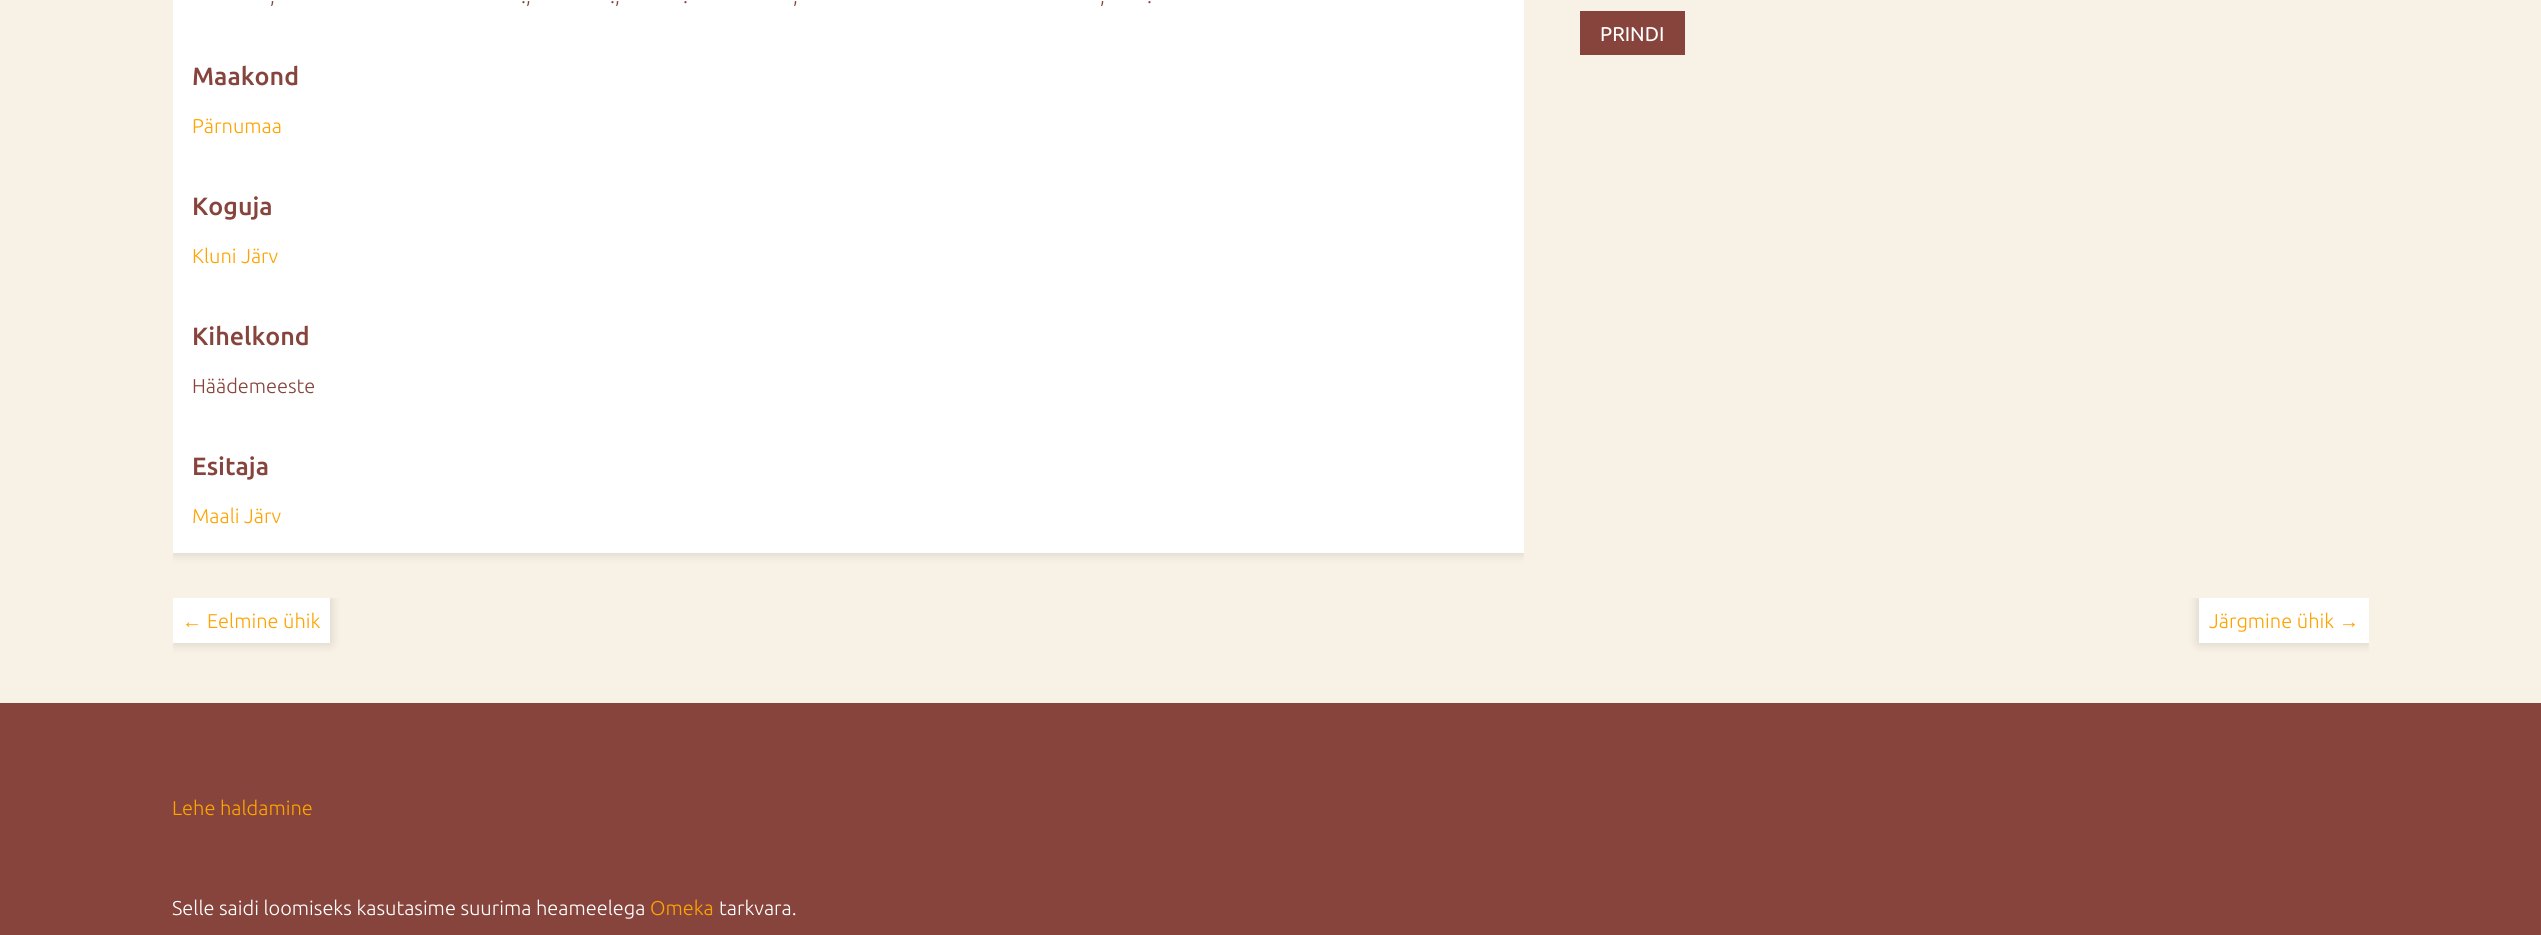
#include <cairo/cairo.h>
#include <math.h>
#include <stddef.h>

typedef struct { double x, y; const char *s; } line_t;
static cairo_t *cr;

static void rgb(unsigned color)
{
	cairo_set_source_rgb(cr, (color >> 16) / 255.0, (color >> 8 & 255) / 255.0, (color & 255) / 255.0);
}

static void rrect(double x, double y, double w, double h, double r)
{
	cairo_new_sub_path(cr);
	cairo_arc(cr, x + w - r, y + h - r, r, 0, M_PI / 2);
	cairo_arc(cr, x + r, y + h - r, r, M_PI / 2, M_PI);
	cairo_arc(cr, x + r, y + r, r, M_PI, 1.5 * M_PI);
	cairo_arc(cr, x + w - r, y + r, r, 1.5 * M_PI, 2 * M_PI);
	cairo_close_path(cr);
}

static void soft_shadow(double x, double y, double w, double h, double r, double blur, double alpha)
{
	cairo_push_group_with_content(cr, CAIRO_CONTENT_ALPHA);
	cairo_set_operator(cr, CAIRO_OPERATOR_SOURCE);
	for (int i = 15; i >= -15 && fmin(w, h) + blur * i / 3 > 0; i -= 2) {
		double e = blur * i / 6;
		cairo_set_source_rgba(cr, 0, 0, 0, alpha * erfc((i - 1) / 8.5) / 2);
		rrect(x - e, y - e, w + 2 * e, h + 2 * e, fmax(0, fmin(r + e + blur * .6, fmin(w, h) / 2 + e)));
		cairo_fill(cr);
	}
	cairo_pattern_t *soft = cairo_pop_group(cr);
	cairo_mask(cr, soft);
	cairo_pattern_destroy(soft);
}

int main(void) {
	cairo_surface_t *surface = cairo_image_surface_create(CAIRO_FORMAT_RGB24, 2541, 935);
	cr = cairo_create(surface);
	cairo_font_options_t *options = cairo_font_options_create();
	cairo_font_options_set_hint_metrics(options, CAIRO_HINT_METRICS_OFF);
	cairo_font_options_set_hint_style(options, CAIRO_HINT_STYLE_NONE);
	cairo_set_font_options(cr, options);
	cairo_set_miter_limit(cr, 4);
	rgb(0x86443c);
	cairo_paint(cr);
	rgb(0xf8f1e5);
	cairo_rectangle(cr, 0, 0, 2541, 703);
	cairo_fill(cr);
	cairo_save(cr);
	cairo_rectangle(cr, 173, 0, 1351, 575);
	cairo_clip(cr);
	rgb(0x000000);
	soft_shadow(173, -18, 1351, 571, 0, 6, 0.15);
	cairo_restore(cr);
	rgb(0xffffff);
	cairo_rectangle(cr, 173, 0, 1351, 553);
	cairo_fill(cr);
	rgb(0x86443c);
	cairo_rectangle(cr, 1580, 11, 105, 44);
	cairo_fill(cr);
	cairo_save(cr);
	cairo_rectangle(cr, 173, 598, 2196, 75);
	cairo_clip(cr);
	rgb(0x000000);
	soft_shadow(173, 598, 157, 45, 0, 6, 0.15);
	cairo_restore(cr);
	rgb(0xffffff);
	cairo_rectangle(cr, 173, 598, 157, 45);
	cairo_fill(cr);
	cairo_save(cr);
	cairo_rectangle(cr, 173, 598, 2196, 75);
	cairo_clip(cr);
	rgb(0x000000);
	soft_shadow(2199, 598, 170, 45, 0, 6, 0.15);
	cairo_restore(cr);
	cairo_rectangle(cr, 2199, 598, 170, 45);
	cairo_fill(cr);
	cairo_select_font_face(cr, "Ubuntu Light", CAIRO_FONT_SLANT_NORMAL, CAIRO_FONT_WEIGHT_NORMAL);
	cairo_set_font_size(cr, 20);
	rgb(0x86443c);
	{
		static const line_t items[] = {
			{270, 3, ","},
			{521, 3, ".,"},
			{610, 3, ".,"},
			{683, 3, "."},
			{793, 3, ","},
			{1100, 3, ","},
			{1147, 3, "."},
		};
		for (size_t i = 0; i < sizeof items / sizeof *items; i++) {
			cairo_move_to(cr, items[i].x, items[i].y);
			cairo_show_text(cr, items[i].s);
		}
	}
	cairo_select_font_face(cr, "Ubuntu Medium", CAIRO_FONT_SLANT_NORMAL, CAIRO_FONT_WEIGHT_NORMAL);
	cairo_set_font_size(cr, 25);
	cairo_move_to(cr, 192, 85);
	cairo_show_text(cr, "Maakond");
	cairo_select_font_face(cr, "Ubuntu Light", CAIRO_FONT_SLANT_NORMAL, CAIRO_FONT_WEIGHT_NORMAL);
	cairo_set_font_size(cr, 20);
	rgb(0xffa300);
	cairo_move_to(cr, 192, 133);
	cairo_show_text(cr, "Pärnumaa");
	cairo_select_font_face(cr, "Ubuntu Medium", CAIRO_FONT_SLANT_NORMAL, CAIRO_FONT_WEIGHT_NORMAL);
	cairo_set_font_size(cr, 25);
	rgb(0x86443c);
	cairo_move_to(cr, 192, 215);
	cairo_show_text(cr, "Koguja");
	cairo_select_font_face(cr, "Ubuntu Light", CAIRO_FONT_SLANT_NORMAL, CAIRO_FONT_WEIGHT_NORMAL);
	cairo_set_font_size(cr, 20);
	rgb(0xffa300);
	cairo_move_to(cr, 192, 263);
	cairo_show_text(cr, "Kluni Järv");
	cairo_select_font_face(cr, "Ubuntu Medium", CAIRO_FONT_SLANT_NORMAL, CAIRO_FONT_WEIGHT_NORMAL);
	cairo_set_font_size(cr, 25);
	rgb(0x86443c);
	cairo_move_to(cr, 192, 345);
	cairo_show_text(cr, "Kihelkond");
	cairo_select_font_face(cr, "Ubuntu Light", CAIRO_FONT_SLANT_NORMAL, CAIRO_FONT_WEIGHT_NORMAL);
	cairo_set_font_size(cr, 20);
	cairo_move_to(cr, 192, 393);
	cairo_show_text(cr, "Häädemeeste");
	cairo_select_font_face(cr, "Ubuntu Medium", CAIRO_FONT_SLANT_NORMAL, CAIRO_FONT_WEIGHT_NORMAL);
	cairo_set_font_size(cr, 25);
	cairo_move_to(cr, 192, 475);
	cairo_show_text(cr, "Esitaja");
	cairo_select_font_face(cr, "Ubuntu Light", CAIRO_FONT_SLANT_NORMAL, CAIRO_FONT_WEIGHT_NORMAL);
	cairo_set_font_size(cr, 20);
	rgb(0xffa300);
	cairo_move_to(cr, 192, 523);
	cairo_show_text(cr, "Maali Järv");
	cairo_select_font_face(cr, "Ubuntu", CAIRO_FONT_SLANT_NORMAL, CAIRO_FONT_WEIGHT_NORMAL);
	rgb(0xffffff);
	cairo_move_to(cr, 1600, 41);
	cairo_show_text(cr, "PRINDI");
	cairo_select_font_face(cr, "Liberation Sans", CAIRO_FONT_SLANT_NORMAL, CAIRO_FONT_WEIGHT_NORMAL);
	rgb(0xffa300);
	cairo_move_to(cr, 182, 628);
	cairo_show_text(cr, "←");
	cairo_select_font_face(cr, "Ubuntu Light", CAIRO_FONT_SLANT_NORMAL, CAIRO_FONT_WEIGHT_NORMAL);
	cairo_move_to(cr, 207, 628);
	cairo_show_text(cr, "Eelmine ühik");
	cairo_move_to(cr, 2209, 628);
	cairo_show_text(cr, "Järgmine ühik");
	cairo_select_font_face(cr, "Liberation Sans", CAIRO_FONT_SLANT_NORMAL, CAIRO_FONT_WEIGHT_NORMAL);
	cairo_move_to(cr, 2339, 628);
	cairo_show_text(cr, "→");
	cairo_select_font_face(cr, "Ubuntu Light", CAIRO_FONT_SLANT_NORMAL, CAIRO_FONT_WEIGHT_NORMAL);
	cairo_move_to(cr, 172, 815);
	cairo_show_text(cr, "Lehe haldamine");
	rgb(0xffffff);
	cairo_move_to(cr, 172, 915);
	cairo_show_text(cr, "Selle saidi loomiseks kasutasime suurima heameelega");
	rgb(0xffa300);
	cairo_move_to(cr, 650, 915);
	cairo_show_text(cr, "Omeka");
	rgb(0xffffff);
	cairo_move_to(cr, 719, 915);
	cairo_show_text(cr, "tarkvara.");
	cairo_surface_write_to_png(surface, "page.png");
	cairo_font_options_destroy(options);
	cairo_destroy(cr);
	cairo_surface_destroy(surface);
	return 0;
}
